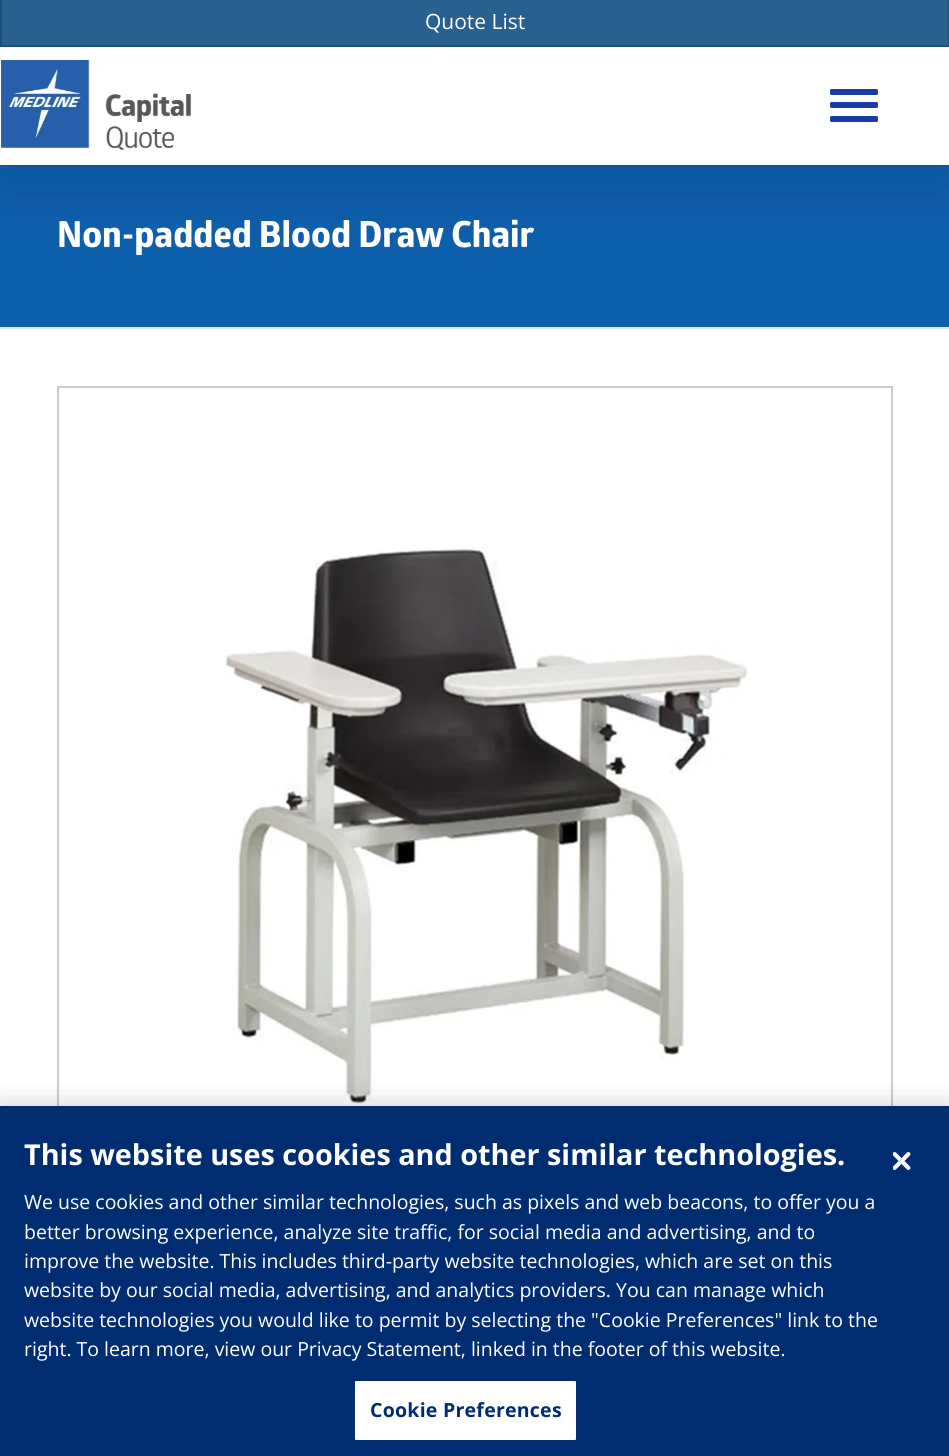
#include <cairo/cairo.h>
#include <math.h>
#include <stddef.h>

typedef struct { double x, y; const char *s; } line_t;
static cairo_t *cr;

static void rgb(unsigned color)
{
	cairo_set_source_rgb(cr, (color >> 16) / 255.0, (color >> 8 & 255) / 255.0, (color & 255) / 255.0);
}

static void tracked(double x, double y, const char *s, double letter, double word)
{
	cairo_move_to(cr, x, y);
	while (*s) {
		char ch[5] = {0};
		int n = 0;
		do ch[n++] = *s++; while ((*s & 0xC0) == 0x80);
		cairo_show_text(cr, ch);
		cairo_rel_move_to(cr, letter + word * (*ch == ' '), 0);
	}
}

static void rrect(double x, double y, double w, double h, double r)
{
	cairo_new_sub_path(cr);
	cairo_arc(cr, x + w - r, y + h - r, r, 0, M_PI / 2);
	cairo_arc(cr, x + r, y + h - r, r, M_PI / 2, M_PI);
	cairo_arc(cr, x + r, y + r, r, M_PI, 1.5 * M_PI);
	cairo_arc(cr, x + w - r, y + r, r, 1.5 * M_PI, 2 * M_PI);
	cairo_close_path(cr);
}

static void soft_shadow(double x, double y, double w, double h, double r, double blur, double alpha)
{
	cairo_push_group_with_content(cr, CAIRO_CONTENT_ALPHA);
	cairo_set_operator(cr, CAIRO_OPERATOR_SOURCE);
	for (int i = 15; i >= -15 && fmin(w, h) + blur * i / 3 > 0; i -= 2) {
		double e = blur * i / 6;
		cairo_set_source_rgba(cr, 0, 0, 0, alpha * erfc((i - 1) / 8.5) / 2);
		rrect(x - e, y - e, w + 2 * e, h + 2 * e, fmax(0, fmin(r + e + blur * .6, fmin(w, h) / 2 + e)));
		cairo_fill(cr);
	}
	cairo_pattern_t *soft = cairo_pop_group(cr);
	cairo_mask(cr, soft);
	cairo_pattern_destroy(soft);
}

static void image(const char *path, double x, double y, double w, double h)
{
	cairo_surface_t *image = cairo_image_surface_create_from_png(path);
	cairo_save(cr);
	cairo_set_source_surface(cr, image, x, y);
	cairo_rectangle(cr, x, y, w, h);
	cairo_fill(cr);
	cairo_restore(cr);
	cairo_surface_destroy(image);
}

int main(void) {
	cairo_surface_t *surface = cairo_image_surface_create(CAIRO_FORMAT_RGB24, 949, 1456);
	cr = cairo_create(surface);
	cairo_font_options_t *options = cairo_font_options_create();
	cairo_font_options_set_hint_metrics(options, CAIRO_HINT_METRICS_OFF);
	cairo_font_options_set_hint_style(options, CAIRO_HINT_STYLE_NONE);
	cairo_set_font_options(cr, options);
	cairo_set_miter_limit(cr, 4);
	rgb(0xffffff);
	cairo_paint(cr);
	rgb(0x0e5fac);
	cairo_rectangle(cr, 0, 165, 949, 162);
	cairo_fill(cr);
	rgb(0x000000);
	soft_shadow(3, 18, 944, 159, 0, 37.5, 0.14);
	rgb(0xffffff);
	cairo_rectangle(cr, 0, 47, 949, 118);
	cairo_fill(cr);
	rgb(0x286090);
	cairo_rectangle(cr, 1, -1, 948, 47);
	cairo_fill_preserve(cr);
	rgb(0x204d74);
	cairo_stroke(cr);
	image("img/1.png", 0, 60, 191, 90);
	rgb(0x163d9f);
	rrect(830, 89, 48, 6, 1.5);
	cairo_fill(cr);
	rrect(830, 102, 48, 6, 1.5);
	cairo_fill(cr);
	rrect(830, 116, 48, 6, 1.5);
	cairo_fill(cr);
	rgb(0xe1e4e8);
	cairo_rectangle(cr, 0, 327, 949, 2);
	cairo_fill(cr);
	cairo_rectangle(cr, 58, 387, 834, 833);
	rgb(0xcccccc);
	cairo_stroke(cr);
	image("img/2.png", 225, 547, 523, 557);
	rgb(0x000000);
	soft_shadow(0, 1106, 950, 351, 0, 13.5, 0.2);
	rgb(0x002d72);
	cairo_rectangle(cr, 0, 1106, 949, 350);
	cairo_fill(cr);
	rgb(0xffffff);
	rrect(354, 1380, 223, 61, 2);
	cairo_fill_preserve(cr);
	rgb(0x002d72);
	cairo_stroke(cr);
	image("img/3.png", 893, 1152, 18, 18);
	cairo_select_font_face(cr, "Open Sans", CAIRO_FONT_SLANT_NORMAL, CAIRO_FONT_WEIGHT_NORMAL);
	cairo_set_font_size(cr, 21);
	rgb(0xffffff);
	cairo_move_to(cr, 425, 29);
	cairo_show_text(cr, "Quote List");
	cairo_select_font_face(cr, "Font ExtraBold", CAIRO_FONT_SLANT_NORMAL, CAIRO_FONT_WEIGHT_NORMAL);
	cairo_set_font_size(cr, 36);
	cairo_move_to(cr, 57, 247);
	cairo_show_text(cr, "Non-padded Blood Draw Chair");
	cairo_select_font_face(cr, "Open Sans", CAIRO_FONT_SLANT_NORMAL, CAIRO_FONT_WEIGHT_BOLD);
	cairo_set_font_size(cr, 28.8);
	cairo_move_to(cr, 24, 1165);
	cairo_show_text(cr, "This website uses cookies and other similar technologies.");
	cairo_select_font_face(cr, "Open Sans", CAIRO_FONT_SLANT_NORMAL, CAIRO_FONT_WEIGHT_NORMAL);
	cairo_set_font_size(cr, 19.5);
	{
		static const line_t items[] = {
			{24, 1209, "We use cookies and other similar technologies, such as pixels and web beacons, to offer you a"},
			{24, 1239, "better browsing experience, analyze site traffic, for social media and advertising, and to"},
			{24, 1268, "improve the website. This includes third-party website technologies, which are set on this"},
			{24, 1297, "website by our social media, advertising, and analytics providers. You can manage which"},
			{24, 1327, "website technologies you would like to permit by selecting the \"Cookie Preferences\" link to the"},
			{24, 1356, "right. To learn more, view our Privacy Statement, linked in the footer of this website."},
		};
		for (size_t i = 0; i < sizeof items / sizeof *items; i++) {
			cairo_move_to(cr, items[i].x, items[i].y);
			cairo_show_text(cr, items[i].s);
		}
	}
	cairo_select_font_face(cr, "Open Sans", CAIRO_FONT_SLANT_NORMAL, CAIRO_FONT_WEIGHT_BOLD);
	rgb(0x002d72);
	tracked(370, 1417, "Cookie Preferences", 0.25, 0);
	cairo_surface_write_to_png(surface, "page.png");
	cairo_font_options_destroy(options);
	cairo_destroy(cr);
	cairo_surface_destroy(surface);
	return 0;
}
